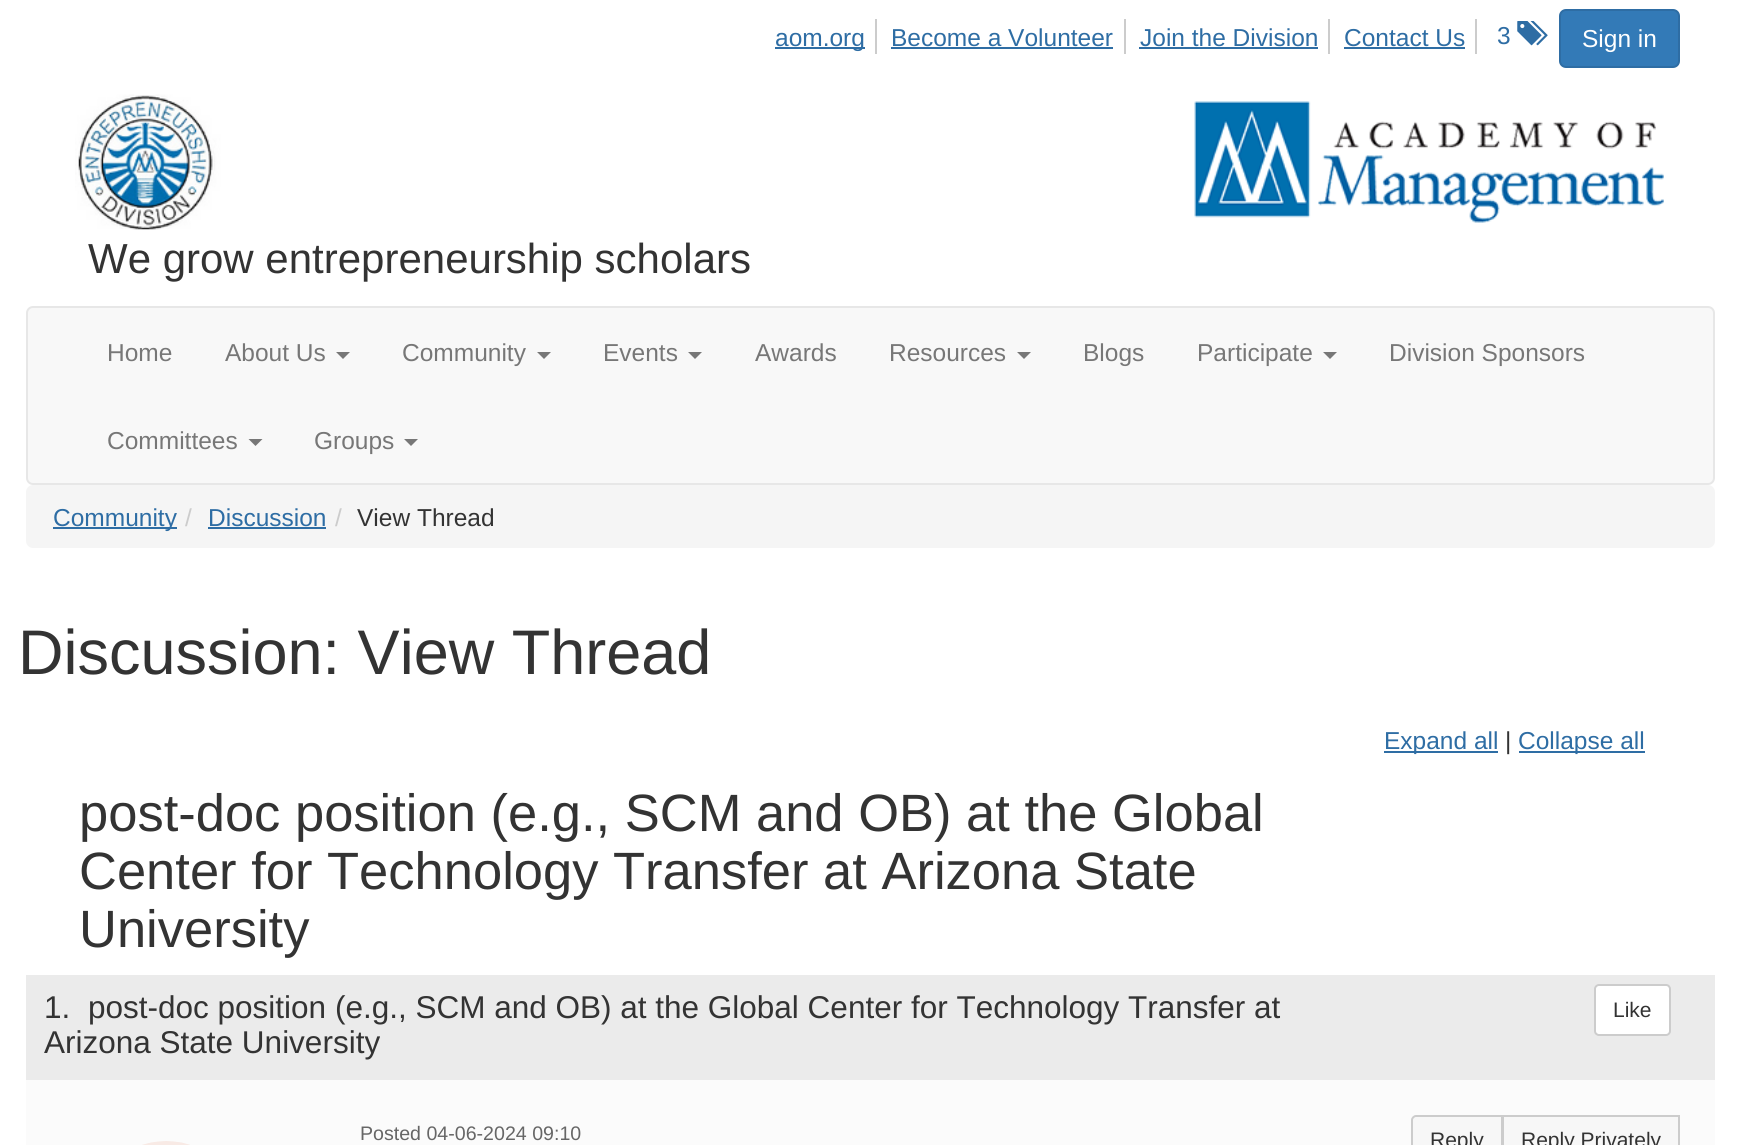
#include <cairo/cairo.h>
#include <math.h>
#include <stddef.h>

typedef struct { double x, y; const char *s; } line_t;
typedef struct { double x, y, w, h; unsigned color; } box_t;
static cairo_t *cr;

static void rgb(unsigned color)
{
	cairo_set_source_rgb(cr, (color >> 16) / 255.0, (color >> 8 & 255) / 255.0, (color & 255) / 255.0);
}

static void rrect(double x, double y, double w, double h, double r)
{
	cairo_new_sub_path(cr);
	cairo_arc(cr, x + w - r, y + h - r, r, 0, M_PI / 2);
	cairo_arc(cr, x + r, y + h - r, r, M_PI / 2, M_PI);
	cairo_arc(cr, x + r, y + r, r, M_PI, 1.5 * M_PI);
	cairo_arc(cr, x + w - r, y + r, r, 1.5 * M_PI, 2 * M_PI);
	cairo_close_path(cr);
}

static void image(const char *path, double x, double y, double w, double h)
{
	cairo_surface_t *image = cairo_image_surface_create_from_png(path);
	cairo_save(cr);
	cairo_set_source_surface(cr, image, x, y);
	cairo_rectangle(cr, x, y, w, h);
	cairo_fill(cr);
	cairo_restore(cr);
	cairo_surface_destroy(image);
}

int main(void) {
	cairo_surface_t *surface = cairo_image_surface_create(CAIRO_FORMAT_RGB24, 1741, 1145);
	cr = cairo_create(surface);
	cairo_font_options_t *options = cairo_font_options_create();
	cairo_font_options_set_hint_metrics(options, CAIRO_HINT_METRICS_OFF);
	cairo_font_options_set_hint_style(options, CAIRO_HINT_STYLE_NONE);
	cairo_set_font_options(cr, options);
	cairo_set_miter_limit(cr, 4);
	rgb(0xffffff);
	cairo_paint(cr);
	{
		static const box_t items[] = {
			{875, 19, 2, 35, 0xcccccc},
			{775, 47, 90, 2, 0x2e6da4},
			{1124, 19, 2, 35, 0xcccccc},
			{891, 47, 222, 2, 0x2e6da4},
			{1328, 19, 2, 35, 0xcccccc},
			{1139, 47, 179, 2, 0x2e6da4},
			{1475, 19, 2, 35, 0xcccccc},
			{1344, 47, 121, 2, 0x2e6da4},
		};
		for (size_t i = 0; i < sizeof items / sizeof *items; i++) {
			rgb(items[i].color);
			cairo_rectangle(cr, items[i].x, items[i].y, items[i].w, items[i].h);
			cairo_fill(cr);
		}
	}
	image("img/1.png", 1517, 21, 31, 25);
	rgb(0x337ab7);
	rrect(1560, 10, 119, 57, 6);
	cairo_fill_preserve(cr);
	rgb(0x2e6da4);
	cairo_stroke(cr);
	image("img/2.png", 75, 94, 1589, 136);
	rgb(0xf8f8f8);
	rrect(27, 307, 1687, 177, 6);
	cairo_fill_preserve(cr);
	rgb(0xe7e7e7);
	cairo_stroke(cr);
	rgb(0x777777);
	cairo_new_path(cr);
	cairo_move_to(cr, 336, 352);
	cairo_line_to(cr, 350, 352);
	cairo_line_to(cr, 343, 359);
	cairo_close_path(cr);
	cairo_fill(cr);
	cairo_new_path(cr);
	cairo_move_to(cr, 537, 352);
	cairo_line_to(cr, 551, 352);
	cairo_line_to(cr, 544, 359);
	cairo_close_path(cr);
	cairo_fill(cr);
	cairo_new_path(cr);
	cairo_move_to(cr, 688, 352);
	cairo_line_to(cr, 702, 352);
	cairo_line_to(cr, 695, 359);
	cairo_close_path(cr);
	cairo_fill(cr);
	cairo_new_path(cr);
	cairo_move_to(cr, 1017, 352);
	cairo_line_to(cr, 1031, 352);
	cairo_line_to(cr, 1024, 359);
	cairo_close_path(cr);
	cairo_fill(cr);
	cairo_new_path(cr);
	cairo_move_to(cr, 1323, 352);
	cairo_line_to(cr, 1337, 352);
	cairo_line_to(cr, 1330, 359);
	cairo_close_path(cr);
	cairo_fill(cr);
	cairo_new_path(cr);
	cairo_move_to(cr, 248.5, 439);
	cairo_line_to(cr, 262.5, 439);
	cairo_line_to(cr, 255.5, 446);
	cairo_close_path(cr);
	cairo_fill(cr);
	cairo_new_path(cr);
	cairo_move_to(cr, 404, 439);
	cairo_line_to(cr, 418, 439);
	cairo_line_to(cr, 411, 446);
	cairo_close_path(cr);
	cairo_fill(cr);
	rgb(0xf5f5f5);
	rrect(26, 485, 1689, 63, 7);
	cairo_fill(cr);
	{
		static const box_t items[] = {
			{53, 527, 124, 2, 0x2e6da4},
			{208, 527, 118, 2, 0x2e6da4},
			{1384, 751, 114, 2, 0x2e6da4},
			{1519, 751, 126, 2, 0x2e6da4},
			{26, 1080, 1689, 65, 0xfbfbfb},
			{26, 975, 1689, 105, 0xebebeb},
		};
		for (size_t i = 0; i < sizeof items / sizeof *items; i++) {
			rgb(items[i].color);
			cairo_rectangle(cr, items[i].x, items[i].y, items[i].w, items[i].h);
			cairo_fill(cr);
		}
	}
	rgb(0xffffff);
	rrect(1595, 985, 75, 50, 4);
	cairo_fill_preserve(cr);
	rgb(0xcccccc);
	cairo_stroke(cr);
	image("img/3.png", 142, 1141, 48, 4);
	rgb(0xf7f7f7);
	cairo_new_path(cr);
	cairo_move_to(cr, 1416, 1116);
	cairo_line_to(cr, 1502, 1116);
	cairo_line_to(cr, 1502, 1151);
	cairo_line_to(cr, 1416, 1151);
	cairo_curve_to(cr, 1414, 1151, 1412, 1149, 1412, 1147);
	cairo_line_to(cr, 1412, 1120);
	cairo_curve_to(cr, 1412, 1118, 1414, 1116, 1416, 1116);
	cairo_close_path(cr);
	cairo_fill_preserve(cr);
	rgb(0xcccccc);
	cairo_stroke(cr);
	rgb(0xf7f7f7);
	cairo_rectangle(cr, 1503, 1116, 176, 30);
	cairo_fill_preserve(cr);
	rgb(0xcccccc);
	cairo_stroke(cr);
	cairo_select_font_face(cr, "Liberation Sans", CAIRO_FONT_SLANT_NORMAL, CAIRO_FONT_WEIGHT_NORMAL);
	cairo_set_font_size(cr, 24.5);
	rgb(0x2e6da4);
	{
		static const line_t items[] = {
			{775, 46, "aom.org"},
			{891, 46, "Become a Volunteer"},
			{1140, 46, "Join the Division"},
			{1344, 46, "Contact Us"},
			{1497, 44, "3"},
		};
		for (size_t i = 0; i < sizeof items / sizeof *items; i++) {
			cairo_move_to(cr, items[i].x, items[i].y);
			cairo_show_text(cr, items[i].s);
		}
	}
	rgb(0xffffff);
	cairo_move_to(cr, 1582, 47);
	cairo_show_text(cr, "Sign in");
	cairo_set_font_size(cr, 42);
	rgb(0x333333);
	cairo_move_to(cr, 88, 273);
	cairo_show_text(cr, "We grow entrepreneurship scholars");
	cairo_set_font_size(cr, 24.5);
	rgb(0x777777);
	{
		static const line_t items[] = {
			{107, 361, "Home"},
			{225, 361, "About Us"},
			{402, 361, "Community"},
			{603, 361, "Events"},
			{755, 361, "Awards"},
			{889, 361, "Resources"},
			{1083, 361, "Blogs"},
			{1197, 361, "Participate"},
			{1389, 361, "Division Sponsors"},
			{107, 449, "Committees"},
			{314, 449, "Groups"},
		};
		for (size_t i = 0; i < sizeof items / sizeof *items; i++) {
			cairo_move_to(cr, items[i].x, items[i].y);
			cairo_show_text(cr, items[i].s);
		}
	}
	rgb(0x2e6da4);
	cairo_move_to(cr, 53, 526);
	cairo_show_text(cr, "Community");
	rgb(0xcccccc);
	cairo_move_to(cr, 185, 526);
	cairo_show_text(cr, "/");
	rgb(0x2e6da4);
	cairo_move_to(cr, 208, 526);
	cairo_show_text(cr, "Discussion");
	rgb(0xcccccc);
	cairo_move_to(cr, 335, 526);
	cairo_show_text(cr, "/");
	rgb(0x333333);
	cairo_move_to(cr, 357, 526);
	cairo_show_text(cr, "View Thread");
	cairo_set_font_size(cr, 63);
	cairo_move_to(cr, 18, 674);
	cairo_show_text(cr, "Discussion: View Thread");
	cairo_set_font_size(cr, 24.5);
	rgb(0x2e6da4);
	cairo_move_to(cr, 1384, 749);
	cairo_show_text(cr, "Expand all");
	rgb(0x333333);
	cairo_move_to(cr, 1505, 749);
	cairo_show_text(cr, "|");
	rgb(0x2e6da4);
	cairo_move_to(cr, 1518, 749);
	cairo_show_text(cr, "Collapse all");
	cairo_set_font_size(cr, 52.5);
	rgb(0x333333);
	{
		static const line_t items[] = {
			{79, 831, "post-doc position (e.g., SCM and OB) at the Global"},
			{79, 889, "Center for Technology Transfer at Arizona State"},
			{79, 947, "University"},
		};
		for (size_t i = 0; i < sizeof items / sizeof *items; i++) {
			cairo_move_to(cr, items[i].x, items[i].y);
			cairo_show_text(cr, items[i].s);
		}
	}
	cairo_set_font_size(cr, 31.5);
	{
		static const line_t items[] = {
			{44, 1018, "1."},
			{88, 1018, "post-doc position (e.g., SCM and OB) at the Global Center for Technology Transfer at"},
			{44, 1053, "Arizona State University"},
		};
		for (size_t i = 0; i < sizeof items / sizeof *items; i++) {
			cairo_move_to(cr, items[i].x, items[i].y);
			cairo_show_text(cr, items[i].s);
		}
	}
	cairo_set_font_size(cr, 21);
	cairo_move_to(cr, 1613, 1017);
	cairo_show_text(cr, "Like");
	cairo_set_font_size(cr, 19.6);
	rgb(0x666666);
	cairo_move_to(cr, 360, 1140);
	cairo_show_text(cr, "Posted 04-06-2024 09:10");
	cairo_set_font_size(cr, 21);
	rgb(0x333333);
	cairo_move_to(cr, 1430, 1147);
	cairo_show_text(cr, "Reply");
	cairo_move_to(cr, 1521, 1147);
	cairo_show_text(cr, "Reply Privately");
	cairo_surface_write_to_png(surface, "page.png");
	cairo_font_options_destroy(options);
	cairo_destroy(cr);
	cairo_surface_destroy(surface);
	return 0;
}
